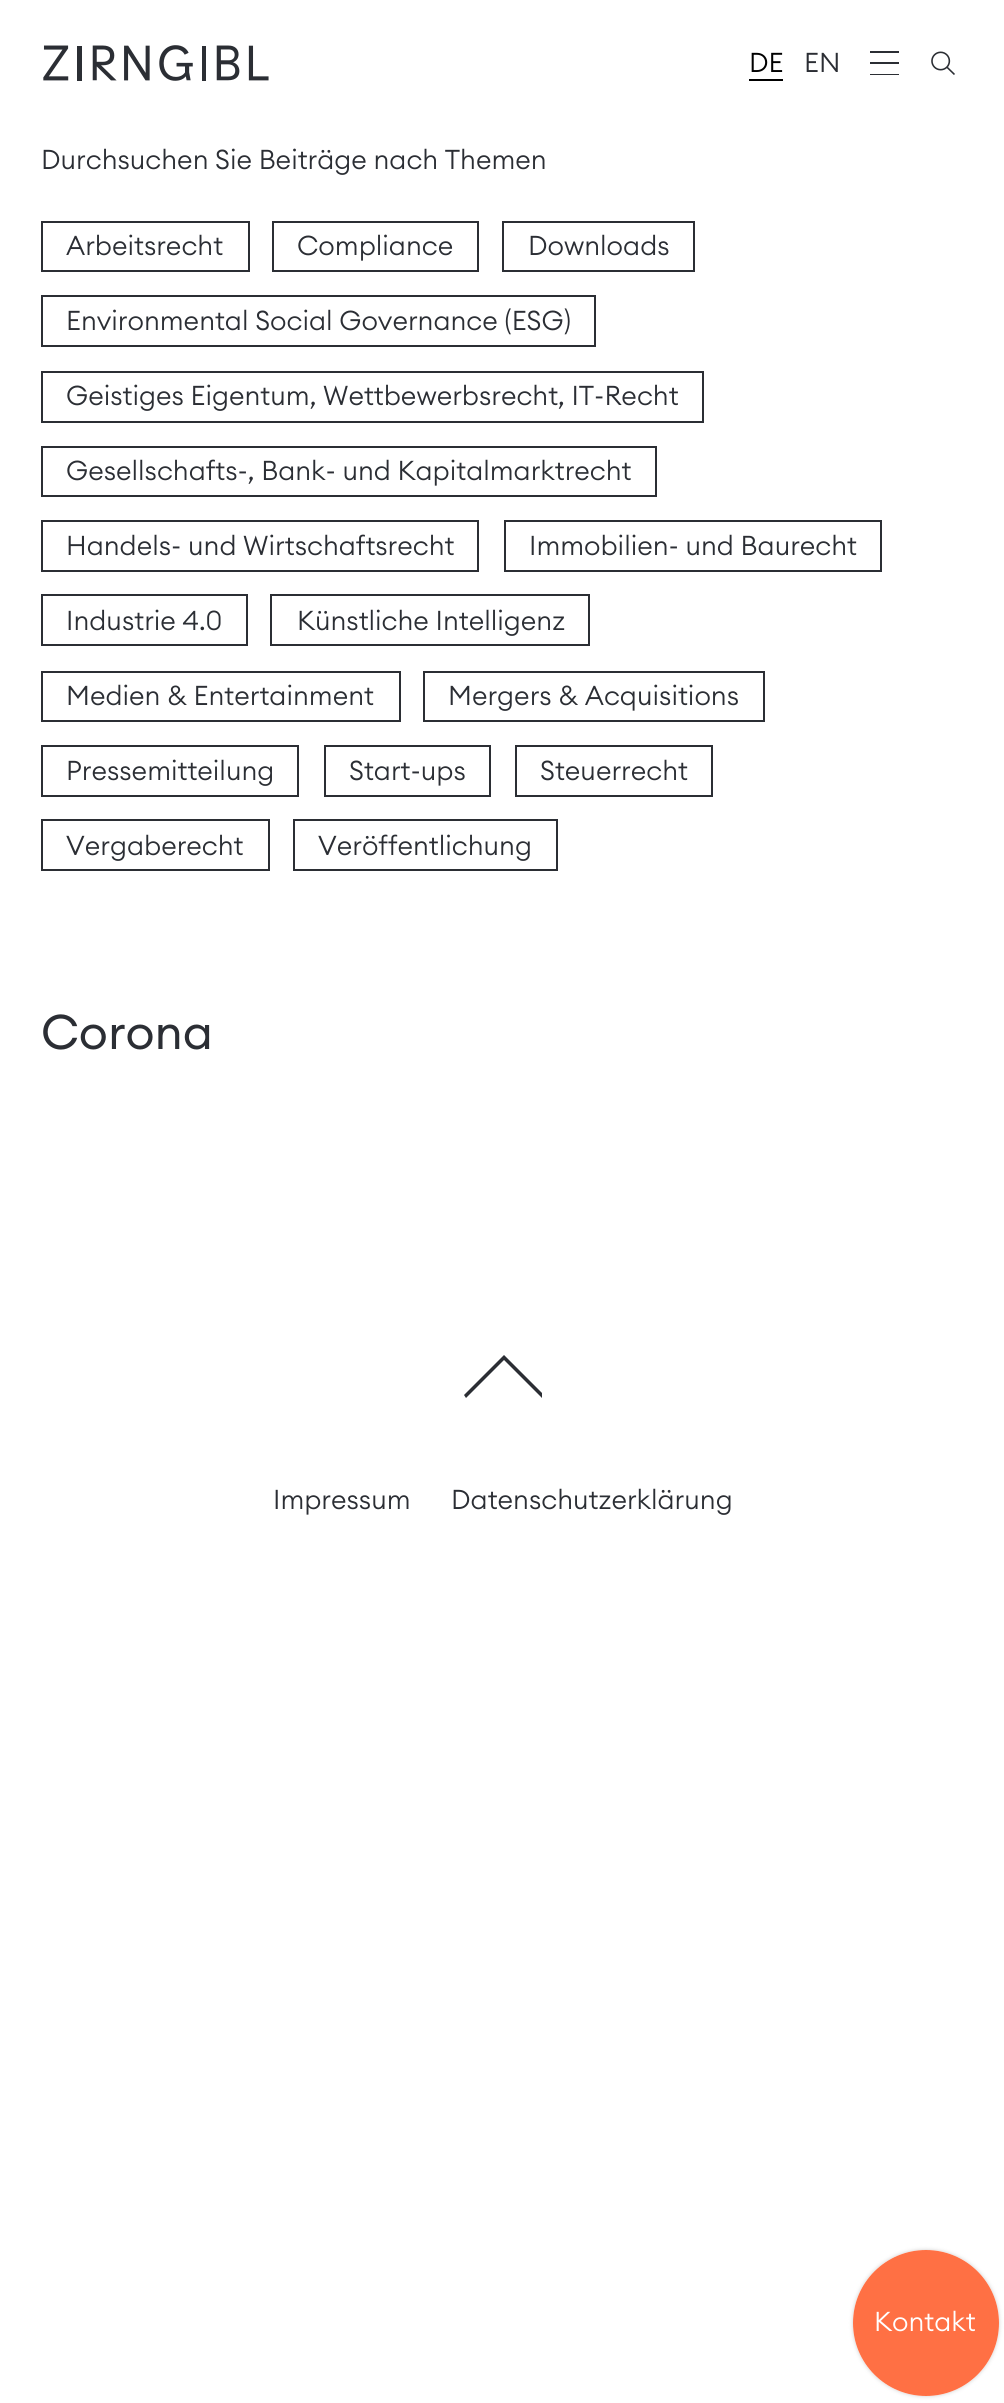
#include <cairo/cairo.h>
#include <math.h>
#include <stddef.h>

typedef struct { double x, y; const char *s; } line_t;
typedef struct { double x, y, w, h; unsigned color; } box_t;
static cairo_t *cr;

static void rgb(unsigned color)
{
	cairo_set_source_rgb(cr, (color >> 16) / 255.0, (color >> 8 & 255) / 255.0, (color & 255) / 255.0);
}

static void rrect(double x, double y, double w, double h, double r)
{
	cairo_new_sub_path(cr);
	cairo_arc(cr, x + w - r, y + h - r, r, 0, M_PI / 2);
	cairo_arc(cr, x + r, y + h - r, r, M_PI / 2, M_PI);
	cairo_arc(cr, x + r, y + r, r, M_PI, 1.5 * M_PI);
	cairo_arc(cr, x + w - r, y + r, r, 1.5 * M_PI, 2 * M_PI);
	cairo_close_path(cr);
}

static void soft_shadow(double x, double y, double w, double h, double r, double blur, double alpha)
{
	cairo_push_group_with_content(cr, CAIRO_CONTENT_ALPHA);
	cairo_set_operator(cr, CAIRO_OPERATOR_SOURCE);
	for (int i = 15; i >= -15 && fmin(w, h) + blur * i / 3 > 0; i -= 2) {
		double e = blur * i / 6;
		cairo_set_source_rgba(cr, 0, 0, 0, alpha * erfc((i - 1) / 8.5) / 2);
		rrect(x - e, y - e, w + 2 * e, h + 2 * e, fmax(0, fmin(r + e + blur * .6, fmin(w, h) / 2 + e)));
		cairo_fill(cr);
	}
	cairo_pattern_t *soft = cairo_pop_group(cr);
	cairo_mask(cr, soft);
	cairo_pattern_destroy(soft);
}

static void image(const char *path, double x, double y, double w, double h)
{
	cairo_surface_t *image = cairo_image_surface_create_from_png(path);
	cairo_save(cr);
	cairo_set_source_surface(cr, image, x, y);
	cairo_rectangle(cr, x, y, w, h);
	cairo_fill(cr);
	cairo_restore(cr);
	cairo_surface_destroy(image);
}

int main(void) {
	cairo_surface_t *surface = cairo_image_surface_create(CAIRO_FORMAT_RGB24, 1004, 2403);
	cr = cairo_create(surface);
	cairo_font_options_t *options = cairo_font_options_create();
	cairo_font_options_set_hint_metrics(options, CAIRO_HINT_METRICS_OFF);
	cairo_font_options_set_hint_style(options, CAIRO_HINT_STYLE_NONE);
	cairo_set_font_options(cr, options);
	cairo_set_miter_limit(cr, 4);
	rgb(0xffffff);
	cairo_paint(cr);
	cairo_rectangle(cr, 42, 222, 207, 49);
	rgb(0x2b2e34);
	cairo_stroke(cr);
	cairo_rectangle(cr, 273, 222, 205, 49);
	cairo_stroke(cr);
	cairo_rectangle(cr, 503, 222, 191, 49);
	cairo_stroke(cr);
	cairo_rectangle(cr, 42, 296, 553, 50);
	cairo_stroke(cr);
	cairo_rectangle(cr, 42, 372, 661, 50);
	cairo_stroke(cr);
	cairo_rectangle(cr, 42, 447, 614, 49);
	cairo_stroke(cr);
	cairo_rectangle(cr, 42, 521, 436, 50);
	cairo_stroke(cr);
	cairo_rectangle(cr, 505, 521, 376, 50);
	cairo_stroke(cr);
	cairo_rectangle(cr, 42, 595, 205, 50);
	cairo_stroke(cr);
	cairo_rectangle(cr, 271, 595, 318, 50);
	cairo_stroke(cr);
	cairo_rectangle(cr, 42, 672, 358, 49);
	cairo_stroke(cr);
	cairo_rectangle(cr, 424, 672, 340, 49);
	cairo_stroke(cr);
	cairo_rectangle(cr, 42, 746, 256, 50);
	cairo_stroke(cr);
	cairo_rectangle(cr, 325, 746, 165, 50);
	cairo_stroke(cr);
	cairo_rectangle(cr, 516, 746, 196, 50);
	cairo_stroke(cr);
	cairo_rectangle(cr, 42, 820, 227, 50);
	cairo_stroke(cr);
	cairo_rectangle(cr, 294, 820, 263, 50);
	cairo_stroke(cr);
	image("img/1.png", 43, 45, 226, 36);
	{
		static const box_t items[] = {
			{749, 79, 34, 2, 0x000000},
			{870, 51, 29, 2, 0x2b2e34},
			{870, 62, 29, 2, 0x2b2e34},
			{870, 74, 29, 1, 0x2b2e34},
		};
		for (size_t i = 0; i < sizeof items / sizeof *items; i++) {
			rgb(items[i].color);
			cairo_rectangle(cr, items[i].x, items[i].y, items[i].w, items[i].h);
			cairo_fill(cr);
		}
	}
	image("img/2.png", 931, 51, 24, 24);
	cairo_save(cr);
	cairo_set_fill_rule(cr, CAIRO_FILL_RULE_EVEN_ODD);
	cairo_new_path(cr);
	cairo_move_to(cr, 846, 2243);
	cairo_line_to(cr, 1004, 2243);
	cairo_line_to(cr, 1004, 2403);
	cairo_line_to(cr, 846, 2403);
	cairo_close_path(cr);
	cairo_move_to(cr, 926, 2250);
	cairo_curve_to(cr, 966.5, 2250, 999, 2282.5, 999, 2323);
	cairo_curve_to(cr, 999, 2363.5, 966.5, 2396, 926, 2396);
	cairo_curve_to(cr, 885.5, 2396, 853, 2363.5, 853, 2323);
	cairo_curve_to(cr, 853, 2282.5, 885.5, 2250, 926, 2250);
	cairo_close_path(cr);
	cairo_clip(cr);
	rgb(0xcccccc);
	soft_shadow(853, 2250, 146, 146, 73, 2, 1);
	cairo_restore(cr);
	rgb(0xff7044);
	cairo_arc(cr, 926, 2323, 73, 0, 2 * M_PI);
	cairo_fill(cr);
	cairo_save(cr);
	cairo_rectangle(cr, 464, 1355, 78, 45);
	cairo_clip(cr);
	rgb(0x2b2e34);
	cairo_new_path(cr);
	cairo_move_to(cr, 466, 1398);
	cairo_line_to(cr, 464, 1395);
	cairo_line_to(cr, 504, 1355);
	cairo_line_to(cr, 544, 1395);
	cairo_line_to(cr, 542, 1398);
	cairo_line_to(cr, 504, 1360);
	cairo_close_path(cr);
	cairo_fill(cr);
	cairo_restore(cr);
	cairo_select_font_face(cr, "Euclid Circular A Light", CAIRO_FONT_SLANT_NORMAL, CAIRO_FONT_WEIGHT_NORMAL);
	cairo_set_font_size(cr, 27);
	rgb(0x2b2e34);
	{
		static const line_t items[] = {
			{41, 169, "Durchsuchen Sie Beiträge nach Themen"},
			{66, 255, "Arbeitsrecht"},
			{297, 255, "Compliance"},
			{528, 255, "Downloads"},
			{66, 330, "Environmental Social Governance (ESG)"},
			{66, 405, "Geistiges Eigentum, Wettbewerbsrecht, IT-Recht"},
			{66, 480, "Gesellschafts-, Bank- und Kapitalmarktrecht"},
			{66, 555, "Handels- und Wirtschaftsrecht"},
			{529, 555, "Immobilien- und Baurecht"},
			{66, 630, "Industrie 4.0"},
			{297, 630, "Künstliche Intelligenz"},
			{66, 705, "Medien & Entertainment"},
			{448, 705, "Mergers & Acquisitions"},
			{66, 780, "Pressemitteilung"},
			{349, 780, "Start-ups"},
			{540, 780, "Steuerrecht"},
			{66, 855, "Vergaberecht"},
			{318, 855, "Veröffentlichung"},
		};
		for (size_t i = 0; i < sizeof items / sizeof *items; i++) {
			cairo_move_to(cr, items[i].x, items[i].y);
			cairo_show_text(cr, items[i].s);
		}
	}
	cairo_select_font_face(cr, "Euclid Circular A", CAIRO_FONT_SLANT_NORMAL, CAIRO_FONT_WEIGHT_NORMAL);
	cairo_set_font_size(cr, 48);
	cairo_move_to(cr, 41, 1049);
	cairo_show_text(cr, "Corona");
	cairo_select_font_face(cr, "Euclid Circular A Light", CAIRO_FONT_SLANT_NORMAL, CAIRO_FONT_WEIGHT_NORMAL);
	cairo_set_font_size(cr, 27);
	rgb(0x000000);
	cairo_move_to(cr, 749, 72);
	cairo_show_text(cr, "DE");
	rgb(0x2b2e34);
	cairo_move_to(cr, 804, 72);
	cairo_show_text(cr, "EN");
	rgb(0xffffff);
	cairo_move_to(cr, 874, 2331);
	cairo_show_text(cr, "Kontakt");
	rgb(0x2b2e34);
	cairo_move_to(cr, 273, 1509);
	cairo_show_text(cr, "Impressum");
	cairo_move_to(cr, 451, 1509);
	cairo_show_text(cr, "Datenschutzerklärung");
	cairo_surface_write_to_png(surface, "page.png");
	cairo_font_options_destroy(options);
	cairo_destroy(cr);
	cairo_surface_destroy(surface);
	return 0;
}
